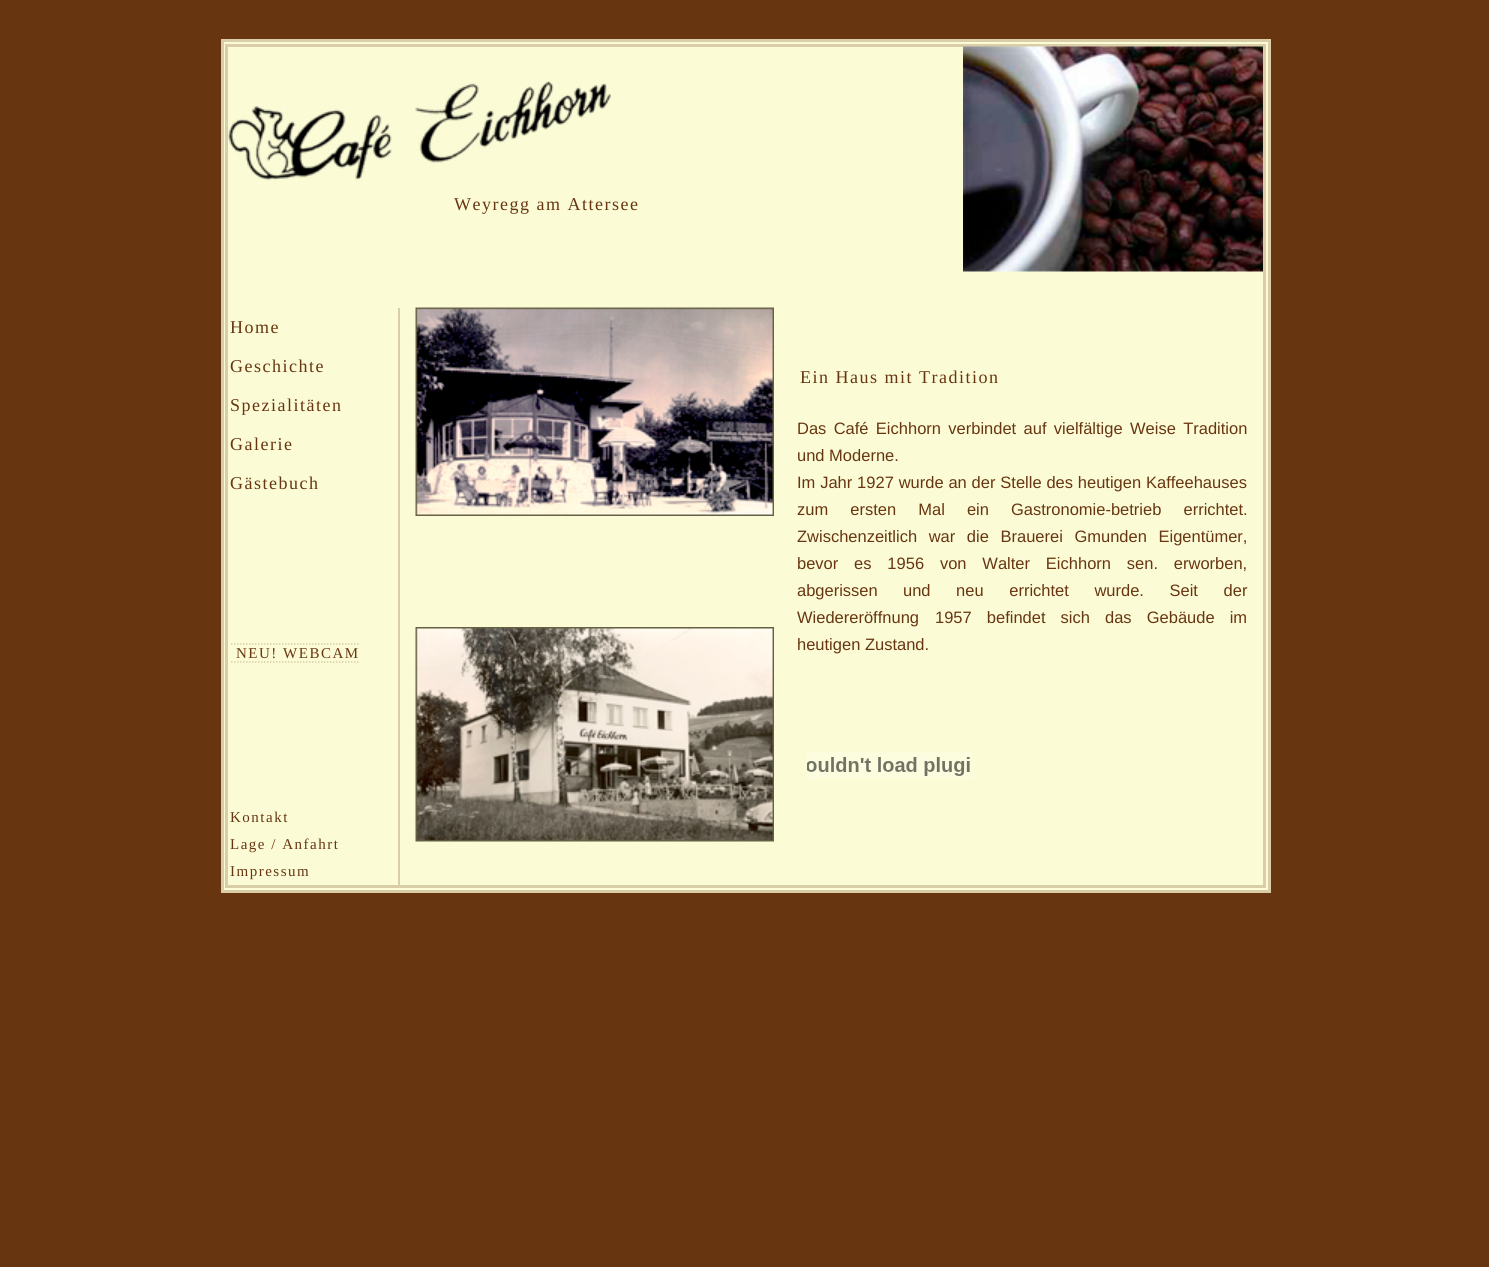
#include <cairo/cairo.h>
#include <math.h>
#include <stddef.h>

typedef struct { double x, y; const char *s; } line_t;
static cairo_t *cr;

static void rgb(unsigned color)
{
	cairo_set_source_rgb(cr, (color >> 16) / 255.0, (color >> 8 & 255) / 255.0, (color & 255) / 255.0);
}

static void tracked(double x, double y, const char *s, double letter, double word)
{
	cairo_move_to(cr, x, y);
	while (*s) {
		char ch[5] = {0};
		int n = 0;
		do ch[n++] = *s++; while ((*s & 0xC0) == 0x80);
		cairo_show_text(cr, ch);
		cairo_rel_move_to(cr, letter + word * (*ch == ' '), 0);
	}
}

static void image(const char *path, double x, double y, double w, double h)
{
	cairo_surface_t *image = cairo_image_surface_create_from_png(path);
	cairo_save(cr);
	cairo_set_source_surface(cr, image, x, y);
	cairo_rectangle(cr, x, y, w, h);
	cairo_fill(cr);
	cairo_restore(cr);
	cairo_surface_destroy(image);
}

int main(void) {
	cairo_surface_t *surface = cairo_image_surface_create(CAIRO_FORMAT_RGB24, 1489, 1267);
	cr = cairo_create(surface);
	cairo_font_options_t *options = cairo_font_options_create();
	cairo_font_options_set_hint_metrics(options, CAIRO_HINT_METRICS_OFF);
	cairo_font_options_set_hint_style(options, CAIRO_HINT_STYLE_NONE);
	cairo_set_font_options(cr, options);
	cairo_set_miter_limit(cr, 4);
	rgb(0x683511);
	cairo_paint(cr);
	rgb(0xfbfcd6);
	cairo_rectangle(cr, 222.5, 40.5, 1047, 851);
	cairo_fill_preserve(cr);
	rgb(0xd9cea8);
	cairo_set_line_width(cr, 3);
	cairo_stroke(cr);
	cairo_rectangle(cr, 226.5, 45.5, 1038, 841);
	cairo_stroke(cr);
	image("img/1.png", 228, 105, 168, 76);
	image("img/2.png", 415, 81, 197, 84);
	image("img/3.png", 963, 46, 300, 226);
	cairo_rectangle(cr, 398, 308, 2, 577);
	cairo_fill(cr);
	cairo_new_path(cr);
	cairo_move_to(cr, 231, 644);
	cairo_line_to(cr, 358.5, 644);
	cairo_set_line_width(cr, 1.5);
	cairo_set_dash(cr, (double[]){1.5, 1.5}, 2, 0);
	cairo_stroke(cr);
	cairo_new_path(cr);
	cairo_move_to(cr, 231, 662);
	cairo_line_to(cr, 358.5, 662);
	cairo_stroke(cr);
	image("img/4.png", 415, 307, 359, 209);
	image("img/5.png", 807, 751, 165, 28);
	image("img/6.png", 415, 627, 359, 215);
	cairo_select_font_face(cr, "Liberation Serif", CAIRO_FONT_SLANT_NORMAL, CAIRO_FONT_WEIGHT_NORMAL);
	cairo_set_font_size(cr, 18);
	rgb(0x683511);
	{
		static const line_t items[] = {
			{454, 210, "Weyregg am Attersee"},
			{230, 333, "Home"},
			{230, 372, "Geschichte"},
			{230, 411, "Spezialitäten"},
			{230, 450, "Galerie"},
			{230, 489, "Gästebuch"},
		};
		for (size_t i = 0; i < sizeof items / sizeof *items; i++) {
			tracked(items[i].x, items[i].y, items[i].s, 1.5, 0);
		}
	}
	cairo_set_font_size(cr, 15);
	{
		static const line_t items[] = {
			{236, 658, "NEU! WEBCAM"},
			{230, 822, "Kontakt"},
			{230, 849, "Lage / Anfahrt"},
			{230, 876, "Impressum"},
		};
		for (size_t i = 0; i < sizeof items / sizeof *items; i++) {
			tracked(items[i].x, items[i].y, items[i].s, 1.5, 0);
		}
	}
	cairo_set_font_size(cr, 18);
	tracked(800, 383, "Ein Haus mit Tradition", 1.5, 0);
	cairo_select_font_face(cr, "Liberation Sans", CAIRO_FONT_SLANT_NORMAL, CAIRO_FONT_WEIGHT_NORMAL);
	cairo_set_font_size(cr, 16.5);
	tracked(797, 434, "Das Café Eichhorn verbindet auf vielfältige", 0, 2.75);
	tracked(1130, 434, "Weise Tradition", 0, 2.75);
	cairo_move_to(cr, 797, 461);
	cairo_show_text(cr, "und Moderne.");
	tracked(797, 488, "Im Jahr 1927 wurde an der Stelle des heutigen Kaffeehauses", 0, 0.25);
	tracked(797, 515, "zum ersten Mal ein Gastronomie-betrieb errichtet.", 0, 17.5);
	tracked(797, 542, "Zwischenzeitlich war die Brauerei Gmunden Eigentümer,", 0, 7);
	tracked(797, 569, "bevor es 1956 von Walter Eichhorn sen. erworben,", 0, 11.25);
	cairo_move_to(cr, 797, 596);
	cairo_show_text(cr, "abgerissen");
	tracked(903, 596, "und neu errichtet wurde. Seit der", 0, 21);
	cairo_move_to(cr, 797, 623);
	cairo_show_text(cr, "Wiedereröffnung");
	tracked(935, 623, "1957 befindet sich das Gebäude im", 0, 10.5);
	cairo_move_to(cr, 797, 650);
	cairo_show_text(cr, "heutigen Zustand.");
	cairo_surface_write_to_png(surface, "page.png");
	cairo_font_options_destroy(options);
	cairo_destroy(cr);
	cairo_surface_destroy(surface);
	return 0;
}
